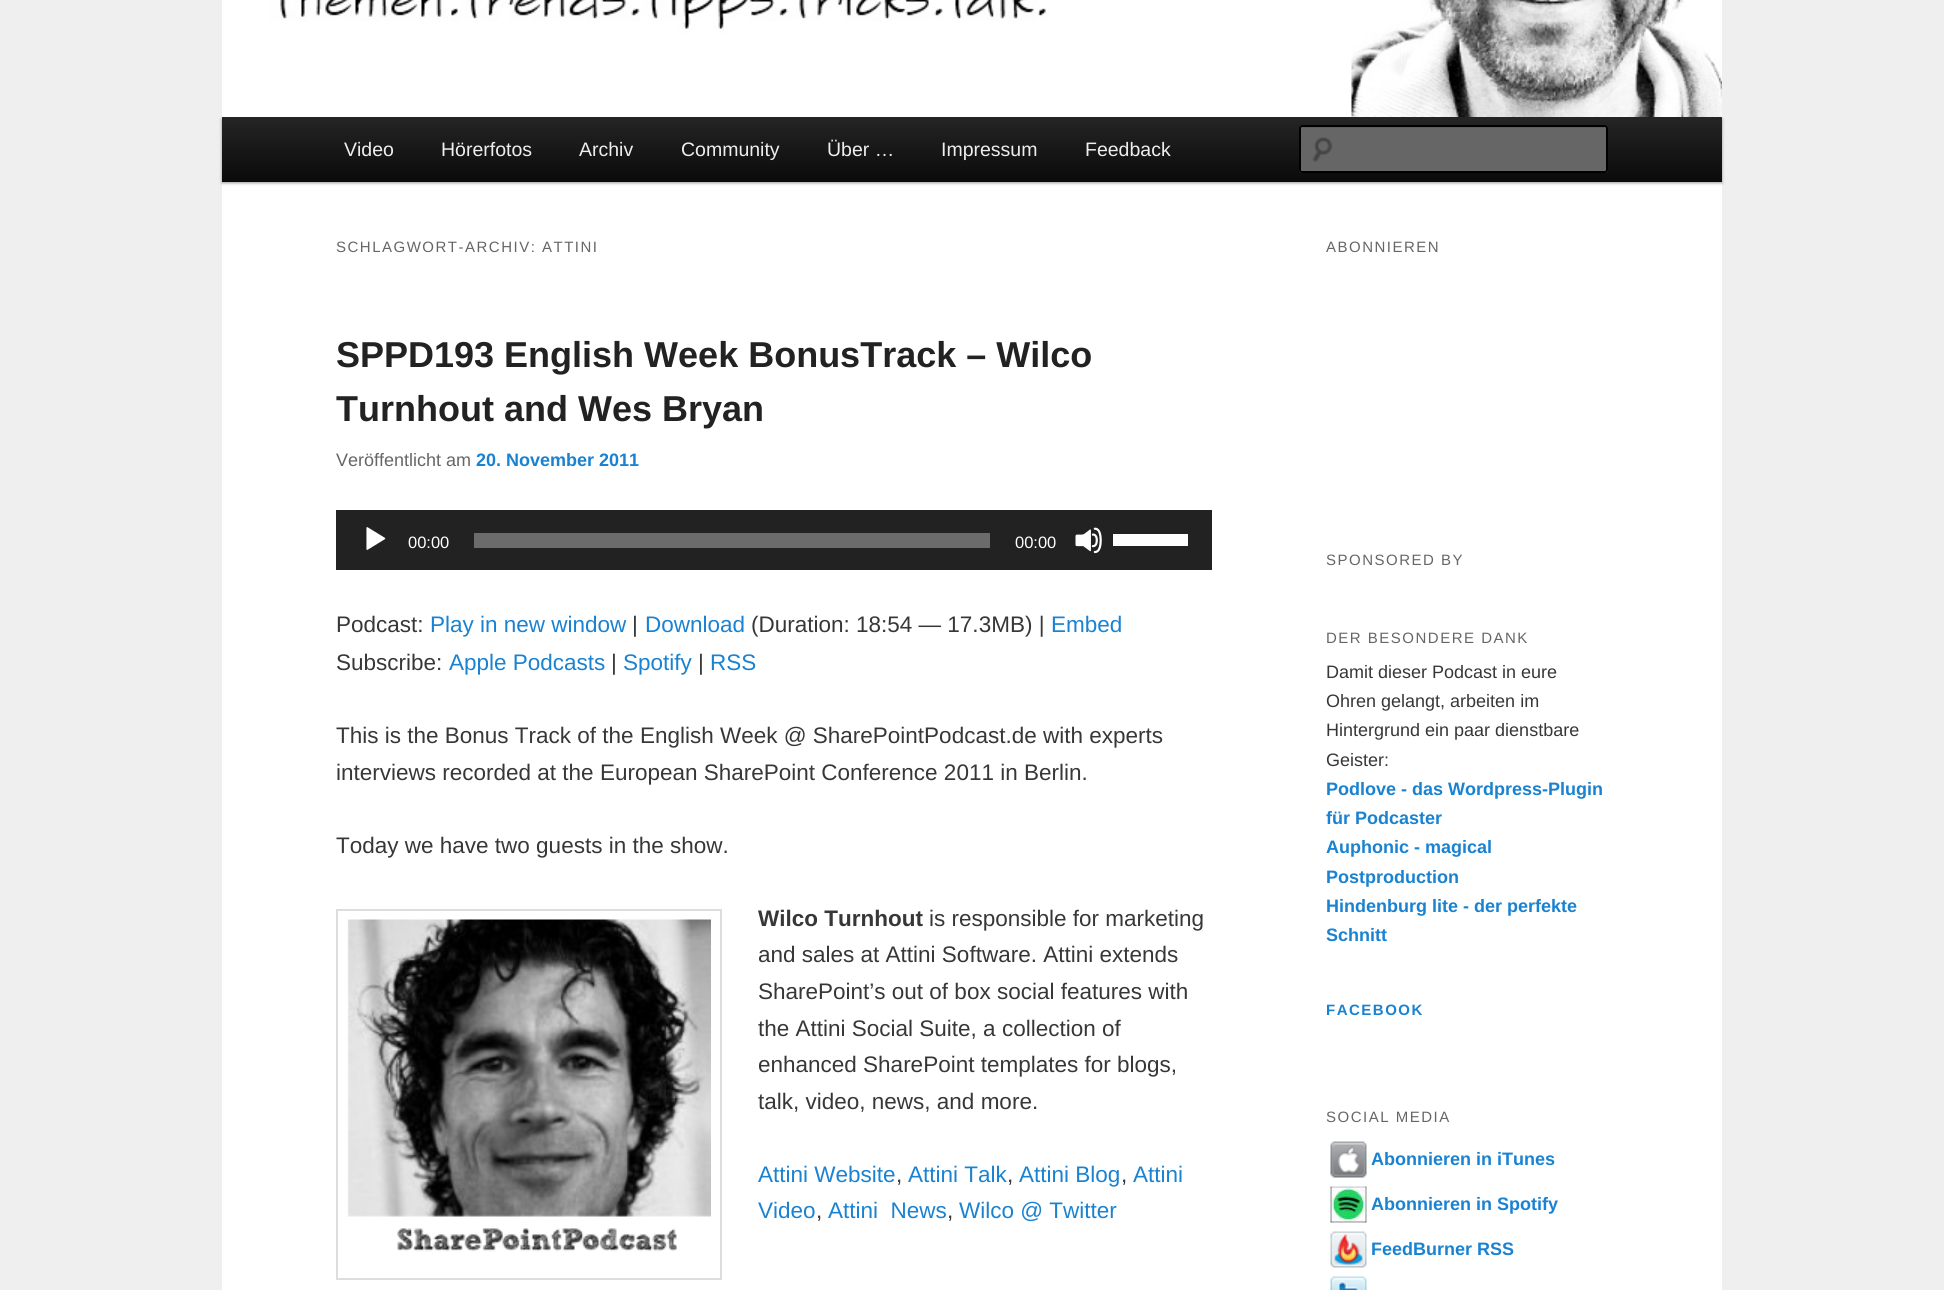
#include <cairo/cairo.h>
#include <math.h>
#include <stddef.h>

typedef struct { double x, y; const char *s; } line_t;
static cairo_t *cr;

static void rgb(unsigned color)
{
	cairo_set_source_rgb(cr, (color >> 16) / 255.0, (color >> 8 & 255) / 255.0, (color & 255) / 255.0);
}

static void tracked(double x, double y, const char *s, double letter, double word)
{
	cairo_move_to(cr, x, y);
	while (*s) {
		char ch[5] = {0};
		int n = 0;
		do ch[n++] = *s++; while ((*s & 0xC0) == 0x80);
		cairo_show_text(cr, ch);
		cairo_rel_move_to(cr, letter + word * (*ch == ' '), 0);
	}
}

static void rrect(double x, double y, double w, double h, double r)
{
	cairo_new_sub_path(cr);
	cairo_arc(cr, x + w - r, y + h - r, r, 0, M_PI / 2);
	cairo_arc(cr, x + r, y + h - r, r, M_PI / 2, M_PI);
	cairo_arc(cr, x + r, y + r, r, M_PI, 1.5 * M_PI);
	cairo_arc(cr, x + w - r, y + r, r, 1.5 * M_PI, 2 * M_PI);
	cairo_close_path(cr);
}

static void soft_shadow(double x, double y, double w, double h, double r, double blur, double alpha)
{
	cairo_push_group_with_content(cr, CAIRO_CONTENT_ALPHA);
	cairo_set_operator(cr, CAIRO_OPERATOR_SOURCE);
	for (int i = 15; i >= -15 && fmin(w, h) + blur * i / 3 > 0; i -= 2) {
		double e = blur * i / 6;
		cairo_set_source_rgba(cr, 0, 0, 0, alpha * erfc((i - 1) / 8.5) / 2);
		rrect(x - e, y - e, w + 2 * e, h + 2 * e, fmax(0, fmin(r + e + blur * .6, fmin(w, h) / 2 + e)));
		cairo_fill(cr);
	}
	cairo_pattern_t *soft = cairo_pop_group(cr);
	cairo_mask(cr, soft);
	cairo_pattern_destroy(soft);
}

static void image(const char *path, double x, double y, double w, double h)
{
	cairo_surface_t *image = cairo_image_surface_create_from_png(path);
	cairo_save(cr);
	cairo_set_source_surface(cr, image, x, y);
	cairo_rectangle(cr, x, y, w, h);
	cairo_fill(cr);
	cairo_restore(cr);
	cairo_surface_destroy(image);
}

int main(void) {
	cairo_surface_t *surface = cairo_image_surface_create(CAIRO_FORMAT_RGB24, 1944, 1290);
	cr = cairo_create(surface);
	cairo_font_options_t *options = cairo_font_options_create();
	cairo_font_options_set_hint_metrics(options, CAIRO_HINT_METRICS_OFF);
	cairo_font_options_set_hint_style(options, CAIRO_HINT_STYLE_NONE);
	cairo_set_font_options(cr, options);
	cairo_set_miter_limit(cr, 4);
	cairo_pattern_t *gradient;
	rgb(0xefefef);
	cairo_paint(cr);
	rgb(0xffffff);
	cairo_rectangle(cr, 222, 0, 1500, 1290);
	cairo_fill(cr);
	rgb(0x000000);
	soft_shadow(222, 119, 1500, 64, 0, 1.5, 0.4);
	image("img/1.png", 224, 0, 1498, 117);
	gradient = cairo_pattern_create_linear(972, 117, 972, 182);
	cairo_pattern_add_color_stop_rgba(gradient, 0, 0.145, 0.145, 0.145, 1);
	cairo_pattern_add_color_stop_rgba(gradient, 1, 0.039, 0.039, 0.039, 1);
	cairo_set_source(cr, gradient);
	cairo_pattern_destroy(gradient);
	cairo_rectangle(cr, 222, 117, 1500, 65);
	cairo_fill(cr);
	rgb(0x666666);
	rrect(1299, 125, 309, 48, 3);
	cairo_fill(cr);
	image("img/2.png", 1312, 137, 21, 25);
	rgb(0x5c5c5c);
	cairo_new_path(cr);
	cairo_move_to(cr, 1302, 128);
	cairo_line_to(cr, 1605, 128);
	cairo_curve_to(cr, 1606, 128, 1606, 128, 1606, 129);
	cairo_line_to(cr, 1606, 171);
	cairo_curve_to(cr, 1607, 171, 1607, 170, 1607, 170);
	cairo_line_to(cr, 1607, 128);
	cairo_curve_to(cr, 1607, 127, 1606, 126, 1606, 126);
	cairo_line_to(cr, 1302, 126);
	cairo_curve_to(cr, 1302, 126, 1301, 127, 1301, 128);
	cairo_close_path(cr);
	cairo_fill(cr);
	rrect(1300, 126, 307, 46, 2);
	rgb(0x000000);
	cairo_stroke(cr);
	rgb(0x222222);
	cairo_rectangle(cr, 336, 510, 876, 60);
	cairo_fill(cr);
	image("img/3.png", 366, 527, 20, 23);
	rgb(0x6b6b6b);
	cairo_rectangle(cr, 474, 533, 516, 15);
	cairo_fill(cr);
	image("img/4.png", 1075, 527, 27, 27);
	rgb(0xffffff);
	cairo_rectangle(cr, 1113, 534, 75, 12);
	cairo_fill(cr);
	cairo_rectangle(cr, 337, 910, 384, 369);
	rgb(0xdddddd);
	cairo_stroke(cr);
	image("img/5.png", 347, 919, 364, 333);
	image("img/6.png", 1330, 1141, 37, 37);
	image("img/7.png", 1330, 1186, 37, 37);
	image("img/8.png", 1330, 1231, 37, 37);
	image("img/9.png", 1330, 1276, 37, 14);
	cairo_select_font_face(cr, "Liberation Sans", CAIRO_FONT_SLANT_NORMAL, CAIRO_FONT_WEIGHT_NORMAL);
	cairo_set_font_size(cr, 19.5);
	rgb(0xeeeeee);
	{
		static const line_t items[] = {
			{344, 156, "Video"},
			{441, 156, "Hörerfotos"},
			{579, 156, "Archiv"},
			{681, 156, "Community"},
			{827, 156, "Über …"},
			{941, 156, "Impressum"},
			{1085, 156, "Feedback"},
		};
		for (size_t i = 0; i < sizeof items / sizeof *items; i++) {
			cairo_move_to(cr, items[i].x, items[i].y);
			cairo_show_text(cr, items[i].s);
		}
	}
	cairo_set_font_size(cr, 15);
	rgb(0x666666);
	tracked(336, 252, "SCHLAGWORT-ARCHIV: ATTINI", 1.5, 0);
	cairo_select_font_face(cr, "Liberation Sans", CAIRO_FONT_SLANT_NORMAL, CAIRO_FONT_WEIGHT_BOLD);
	cairo_set_font_size(cr, 36);
	rgb(0x222222);
	cairo_move_to(cr, 336, 367);
	cairo_show_text(cr, "SPPD193 English Week BonusTrack – Wilco");
	cairo_move_to(cr, 336, 421);
	cairo_show_text(cr, "Turnhout and Wes Bryan");
	cairo_select_font_face(cr, "Liberation Sans", CAIRO_FONT_SLANT_NORMAL, CAIRO_FONT_WEIGHT_NORMAL);
	cairo_set_font_size(cr, 18);
	rgb(0x666666);
	cairo_move_to(cr, 336, 466);
	cairo_show_text(cr, "Veröffentlicht am");
	cairo_select_font_face(cr, "Liberation Sans", CAIRO_FONT_SLANT_NORMAL, CAIRO_FONT_WEIGHT_BOLD);
	rgb(0x1982d1);
	cairo_move_to(cr, 476, 466);
	cairo_show_text(cr, "20. November 2011");
	cairo_select_font_face(cr, "Liberation Sans", CAIRO_FONT_SLANT_NORMAL, CAIRO_FONT_WEIGHT_NORMAL);
	cairo_set_font_size(cr, 16.5);
	rgb(0xffffff);
	cairo_move_to(cr, 408, 548);
	cairo_show_text(cr, "00:00");
	cairo_move_to(cr, 1015, 548);
	cairo_show_text(cr, "00:00");
	cairo_set_font_size(cr, 22.5);
	rgb(0x373737);
	cairo_move_to(cr, 336, 632);
	cairo_show_text(cr, "Podcast:");
	rgb(0x1982d1);
	cairo_move_to(cr, 430, 632);
	cairo_show_text(cr, "Play in new window");
	rgb(0x373737);
	cairo_move_to(cr, 632, 632);
	cairo_show_text(cr, "|");
	rgb(0x1982d1);
	cairo_move_to(cr, 645, 632);
	cairo_show_text(cr, "Download");
	rgb(0x373737);
	cairo_move_to(cr, 751, 632);
	cairo_show_text(cr, "(Duration: 18:54 — 17.3MB) |");
	rgb(0x1982d1);
	cairo_move_to(cr, 1051, 632);
	cairo_show_text(cr, "Embed");
	rgb(0x373737);
	cairo_move_to(cr, 336, 670);
	cairo_show_text(cr, "Subscribe:");
	rgb(0x1982d1);
	cairo_move_to(cr, 449, 670);
	cairo_show_text(cr, "Apple Podcasts");
	rgb(0x373737);
	cairo_move_to(cr, 611, 670);
	cairo_show_text(cr, "|");
	rgb(0x1982d1);
	cairo_move_to(cr, 623, 670);
	cairo_show_text(cr, "Spotify");
	rgb(0x373737);
	cairo_move_to(cr, 698, 670);
	cairo_show_text(cr, "|");
	rgb(0x1982d1);
	cairo_move_to(cr, 710, 670);
	cairo_show_text(cr, "RSS");
	rgb(0x373737);
	{
		static const line_t items[] = {
			{336, 743, "This is the Bonus Track of the English Week @ SharePointPodcast.de with experts"},
			{336, 780, "interviews recorded at the European SharePoint Conference 2011 in Berlin."},
			{336, 853, "Today we have two guests in the show."},
		};
		for (size_t i = 0; i < sizeof items / sizeof *items; i++) {
			cairo_move_to(cr, items[i].x, items[i].y);
			cairo_show_text(cr, items[i].s);
		}
	}
	cairo_select_font_face(cr, "Liberation Sans", CAIRO_FONT_SLANT_NORMAL, CAIRO_FONT_WEIGHT_BOLD);
	cairo_move_to(cr, 758, 926);
	cairo_show_text(cr, "Wilco Turnhout");
	cairo_select_font_face(cr, "Liberation Sans", CAIRO_FONT_SLANT_NORMAL, CAIRO_FONT_WEIGHT_NORMAL);
	{
		static const line_t items[] = {
			{929, 926, "is responsible for marketing"},
			{758, 962, "and sales at Attini Software. Attini extends"},
			{758, 999, "SharePoint’s out of box social features with"},
			{758, 1036, "the Attini Social Suite, a collection of"},
			{758, 1072, "enhanced SharePoint templates for blogs,"},
			{758, 1109, "talk, video, news, and more."},
		};
		for (size_t i = 0; i < sizeof items / sizeof *items; i++) {
			cairo_move_to(cr, items[i].x, items[i].y);
			cairo_show_text(cr, items[i].s);
		}
	}
	rgb(0x1982d1);
	cairo_move_to(cr, 758, 1182);
	cairo_show_text(cr, "Attini Website");
	rgb(0x373737);
	cairo_move_to(cr, 896, 1182);
	cairo_show_text(cr, ",");
	rgb(0x1982d1);
	cairo_move_to(cr, 908, 1182);
	cairo_show_text(cr, "Attini Talk");
	rgb(0x373737);
	cairo_move_to(cr, 1007, 1182);
	cairo_show_text(cr, ",");
	rgb(0x1982d1);
	cairo_move_to(cr, 1019, 1182);
	cairo_show_text(cr, "Attini Blog");
	rgb(0x373737);
	cairo_move_to(cr, 1121, 1182);
	cairo_show_text(cr, ",");
	rgb(0x1982d1);
	cairo_move_to(cr, 1133, 1182);
	cairo_show_text(cr, "Attini");
	cairo_move_to(cr, 758, 1218);
	cairo_show_text(cr, "Video");
	rgb(0x373737);
	cairo_move_to(cr, 816, 1218);
	cairo_show_text(cr, ",");
	rgb(0x1982d1);
	cairo_move_to(cr, 828, 1218);
	cairo_show_text(cr, "Attini  News");
	rgb(0x373737);
	cairo_move_to(cr, 947, 1218);
	cairo_show_text(cr, ",");
	rgb(0x1982d1);
	cairo_move_to(cr, 959, 1218);
	cairo_show_text(cr, "Wilco @ Twitter");
	cairo_set_font_size(cr, 15);
	rgb(0x666666);
	{
		static const line_t items[] = {
			{1326, 252, "ABONNIEREN"},
			{1326, 565, "SPONSORED BY"},
			{1326, 643, "DER BESONDERE DANK"},
		};
		for (size_t i = 0; i < sizeof items / sizeof *items; i++) {
			tracked(items[i].x, items[i].y, items[i].s, 1.5, 0);
		}
	}
	cairo_set_font_size(cr, 18);
	rgb(0x373737);
	{
		static const line_t items[] = {
			{1326, 678, "Damit dieser Podcast in eure"},
			{1326, 707, "Ohren gelangt, arbeiten im"},
			{1326, 736, "Hintergrund ein paar dienstbare"},
			{1326, 766, "Geister:"},
		};
		for (size_t i = 0; i < sizeof items / sizeof *items; i++) {
			cairo_move_to(cr, items[i].x, items[i].y);
			cairo_show_text(cr, items[i].s);
		}
	}
	cairo_select_font_face(cr, "Liberation Sans", CAIRO_FONT_SLANT_NORMAL, CAIRO_FONT_WEIGHT_BOLD);
	rgb(0x1982d1);
	{
		static const line_t items[] = {
			{1326, 795, "Podlove - das Wordpress-Plugin"},
			{1326, 824, "für Podcaster"},
			{1326, 853, "Auphonic - magical"},
			{1326, 883, "Postproduction"},
			{1326, 912, "Hindenburg lite - der perfekte"},
			{1326, 941, "Schnitt"},
		};
		for (size_t i = 0; i < sizeof items / sizeof *items; i++) {
			cairo_move_to(cr, items[i].x, items[i].y);
			cairo_show_text(cr, items[i].s);
		}
	}
	cairo_set_font_size(cr, 15);
	tracked(1326, 1015, "FACEBOOK", 1.5, 0);
	cairo_select_font_face(cr, "Liberation Sans", CAIRO_FONT_SLANT_NORMAL, CAIRO_FONT_WEIGHT_NORMAL);
	rgb(0x666666);
	tracked(1326, 1122, "SOCIAL MEDIA", 1.5, 0);
	cairo_select_font_face(cr, "Liberation Sans", CAIRO_FONT_SLANT_NORMAL, CAIRO_FONT_WEIGHT_BOLD);
	cairo_set_font_size(cr, 18);
	rgb(0x1982d1);
	{
		static const line_t items[] = {
			{1371, 1165, "Abonnieren in iTunes"},
			{1371, 1210, "Abonnieren in Spotify"},
			{1371, 1255, "FeedBurner RSS"},
		};
		for (size_t i = 0; i < sizeof items / sizeof *items; i++) {
			cairo_move_to(cr, items[i].x, items[i].y);
			cairo_show_text(cr, items[i].s);
		}
	}
	cairo_surface_write_to_png(surface, "page.png");
	cairo_font_options_destroy(options);
	cairo_destroy(cr);
	cairo_surface_destroy(surface);
	return 0;
}
